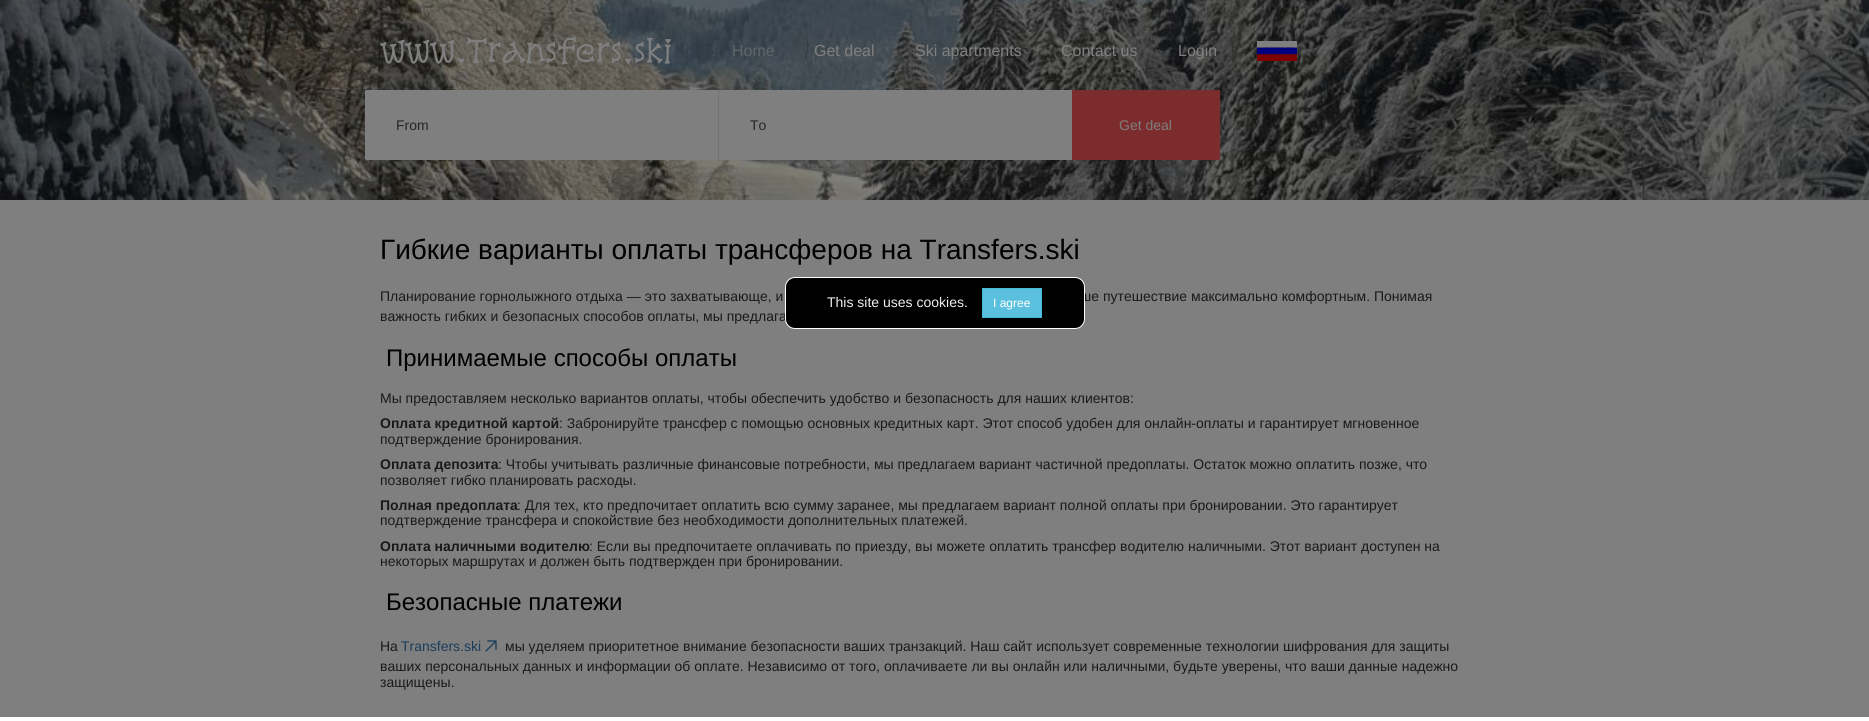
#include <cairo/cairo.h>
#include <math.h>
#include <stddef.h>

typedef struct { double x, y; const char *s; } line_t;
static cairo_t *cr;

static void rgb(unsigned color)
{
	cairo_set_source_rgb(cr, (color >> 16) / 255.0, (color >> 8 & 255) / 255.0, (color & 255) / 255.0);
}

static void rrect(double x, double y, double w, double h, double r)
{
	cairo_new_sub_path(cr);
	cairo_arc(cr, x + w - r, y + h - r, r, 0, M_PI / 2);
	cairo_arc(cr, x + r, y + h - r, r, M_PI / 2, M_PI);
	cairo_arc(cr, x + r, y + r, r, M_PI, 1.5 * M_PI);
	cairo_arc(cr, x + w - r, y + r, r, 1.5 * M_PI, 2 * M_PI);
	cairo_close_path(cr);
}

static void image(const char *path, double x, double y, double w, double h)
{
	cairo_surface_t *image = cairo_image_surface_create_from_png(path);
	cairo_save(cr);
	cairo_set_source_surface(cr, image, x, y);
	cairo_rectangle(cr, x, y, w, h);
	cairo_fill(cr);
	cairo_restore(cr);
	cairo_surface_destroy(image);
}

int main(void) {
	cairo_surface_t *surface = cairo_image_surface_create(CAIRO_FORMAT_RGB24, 1869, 721);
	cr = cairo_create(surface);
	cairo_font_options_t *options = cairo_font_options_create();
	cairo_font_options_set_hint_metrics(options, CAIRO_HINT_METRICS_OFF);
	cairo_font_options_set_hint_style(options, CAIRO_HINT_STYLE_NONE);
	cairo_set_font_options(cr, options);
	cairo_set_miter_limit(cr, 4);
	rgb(0xffffff);
	cairo_paint(cr);
	image("img/2.png", 0, 0, 1869, 200);
	image("img/1.png", 1257, 41, 40, 20);
	rgb(0xffffff);
	rrect(365, 90, 855, 70, 2);
	cairo_fill(cr);
	cairo_new_path(cr);
	cairo_move_to(cr, 367, 90);
	cairo_line_to(cr, 718, 90);
	cairo_line_to(cr, 718, 160);
	cairo_line_to(cr, 367, 160);
	cairo_curve_to(cr, 366, 160, 365, 159, 365, 158);
	cairo_line_to(cr, 365, 92);
	cairo_curve_to(cr, 365, 91, 366, 90, 367, 90);
	cairo_close_path(cr);
	cairo_fill(cr);
	rgb(0xe6e6e6);
	cairo_rectangle(cr, 718, 90, 1, 70);
	cairo_fill(cr);
	rgb(0xf85959);
	cairo_new_path(cr);
	cairo_move_to(cr, 1072, 90);
	cairo_line_to(cr, 1218, 90);
	cairo_curve_to(cr, 1219, 90, 1220, 91, 1220, 92);
	cairo_line_to(cr, 1220, 158);
	cairo_curve_to(cr, 1220, 159, 1219, 160, 1218, 160);
	cairo_line_to(cr, 1072, 160);
	cairo_close_path(cr);
	cairo_fill(cr);
	cairo_set_fill_rule(cr, CAIRO_FILL_RULE_EVEN_ODD);
	cairo_new_path(cr);
	cairo_move_to(cr, 1072, 90);
	cairo_line_to(cr, 1072, 160);
	cairo_line_to(cr, 1218, 160);
	cairo_curve_to(cr, 1219, 160, 1220, 159, 1220, 158);
	cairo_line_to(cr, 1220, 92);
	cairo_curve_to(cr, 1220, 91, 1219, 90, 1218, 90);
	cairo_close_path(cr);
	cairo_move_to(cr, 1073, 91);
	cairo_line_to(cr, 1073, 159);
	cairo_line_to(cr, 1219, 159);
	cairo_line_to(cr, 1219, 91);
	cairo_close_path(cr);
	cairo_fill(cr);
	image("img/3.png", 485, 640, 12, 12);
	cairo_select_font_face(cr, "Snowburst One", CAIRO_FONT_SLANT_NORMAL, CAIRO_FONT_WEIGHT_BOLD);
	cairo_set_font_size(cr, 30);
	rgb(0xffffff);
	cairo_move_to(cr, 380, 63);
	cairo_show_text(cr, "www.Transfers.ski");
	cairo_select_font_face(cr, "Liberation Sans", CAIRO_FONT_SLANT_NORMAL, CAIRO_FONT_WEIGHT_NORMAL);
	cairo_set_font_size(cr, 16);
	rgb(0xbec9d1);
	cairo_move_to(cr, 732, 56);
	cairo_show_text(cr, "Home");
	rgb(0xffffff);
	{
		static const line_t items[] = {
			{814, 56, "Get deal"},
			{915, 56, "Ski apartments"},
			{1061, 56, "Contact us"},
			{1178, 56, "Login"},
		};
		for (size_t i = 0; i < sizeof items / sizeof *items; i++) {
			cairo_move_to(cr, items[i].x, items[i].y);
			cairo_show_text(cr, items[i].s);
		}
	}
	cairo_set_font_size(cr, 14);
	rgb(0x4d4d4d);
	cairo_move_to(cr, 396, 130);
	cairo_show_text(cr, "From");
	cairo_move_to(cr, 750, 130);
	cairo_show_text(cr, "To");
	rgb(0xffffff);
	cairo_move_to(cr, 1119, 130);
	cairo_show_text(cr, "Get deal");
	cairo_set_font_size(cr, 28);
	rgb(0x000000);
	cairo_move_to(cr, 380, 259);
	cairo_show_text(cr, "Гибкие варианты оплаты трансферов на Transfers.ski");
	cairo_set_font_size(cr, 14);
	rgb(0x333333);
	{
		static const line_t items[] = {
			{380, 301, "Планирование горнолыжного отдыха — это захватывающе, и"},
			{1080, 301, "ше путешествие максимально комфортным. Понимая"},
			{380, 321, "важность гибких и безопасных способов оплаты, мы предлага"},
		};
		for (size_t i = 0; i < sizeof items / sizeof *items; i++) {
			cairo_move_to(cr, items[i].x, items[i].y);
			cairo_show_text(cr, items[i].s);
		}
	}
	cairo_set_font_size(cr, 24);
	rgb(0x000000);
	cairo_move_to(cr, 386, 366);
	cairo_show_text(cr, "Принимаемые способы оплаты");
	cairo_set_font_size(cr, 14);
	rgb(0x333333);
	cairo_move_to(cr, 380, 403);
	cairo_show_text(cr, "Мы предоставляем несколько вариантов оплаты, чтобы обеспечить удобство и безопасность для наших клиентов:");
	cairo_select_font_face(cr, "Liberation Sans", CAIRO_FONT_SLANT_NORMAL, CAIRO_FONT_WEIGHT_BOLD);
	cairo_move_to(cr, 380, 428);
	cairo_show_text(cr, "Оплата кредитной картой");
	cairo_select_font_face(cr, "Liberation Sans", CAIRO_FONT_SLANT_NORMAL, CAIRO_FONT_WEIGHT_NORMAL);
	cairo_move_to(cr, 559, 428);
	cairo_show_text(cr, ": Забронируйте трансфер с помощью основных кредитных карт. Этот способ удобен для онлайн-оплаты и гарантирует мгновенное");
	cairo_move_to(cr, 380, 444);
	cairo_show_text(cr, "подтверждение бронирования.");
	cairo_select_font_face(cr, "Liberation Sans", CAIRO_FONT_SLANT_NORMAL, CAIRO_FONT_WEIGHT_BOLD);
	cairo_move_to(cr, 380, 469);
	cairo_show_text(cr, "Оплата депозита");
	cairo_select_font_face(cr, "Liberation Sans", CAIRO_FONT_SLANT_NORMAL, CAIRO_FONT_WEIGHT_NORMAL);
	cairo_move_to(cr, 498, 469);
	cairo_show_text(cr, ": Чтобы учитывать различные финансовые потребности, мы предлагаем вариант частичной предоплаты. Остаток можно оплатить позже, что");
	cairo_move_to(cr, 380, 485);
	cairo_show_text(cr, "позволяет гибко планировать расходы.");
	cairo_select_font_face(cr, "Liberation Sans", CAIRO_FONT_SLANT_NORMAL, CAIRO_FONT_WEIGHT_BOLD);
	cairo_move_to(cr, 380, 510);
	cairo_show_text(cr, "Полная предоплата");
	cairo_select_font_face(cr, "Liberation Sans", CAIRO_FONT_SLANT_NORMAL, CAIRO_FONT_WEIGHT_NORMAL);
	cairo_move_to(cr, 517, 510);
	cairo_show_text(cr, ": Для тех, кто предпочитает оплатить всю сумму заранее, мы предлагаем вариант полной оплаты при бронировании. Это гарантирует");
	cairo_move_to(cr, 380, 525);
	cairo_show_text(cr, "подтверждение трансфера и спокойствие без необходимости дополнительных платежей.");
	cairo_select_font_face(cr, "Liberation Sans", CAIRO_FONT_SLANT_NORMAL, CAIRO_FONT_WEIGHT_BOLD);
	cairo_move_to(cr, 380, 551);
	cairo_show_text(cr, "Оплата наличными водителю");
	cairo_select_font_face(cr, "Liberation Sans", CAIRO_FONT_SLANT_NORMAL, CAIRO_FONT_WEIGHT_NORMAL);
	cairo_move_to(cr, 589, 551);
	cairo_show_text(cr, ": Если вы предпочитаете оплачивать по приезду, вы можете оплатить трансфер водителю наличными. Этот вариант доступен на");
	cairo_move_to(cr, 380, 566);
	cairo_show_text(cr, "некоторых маршрутах и должен быть подтвержден при бронировании.");
	cairo_set_font_size(cr, 24);
	rgb(0x000000);
	cairo_move_to(cr, 386, 610);
	cairo_show_text(cr, "Безопасные платежи");
	cairo_set_font_size(cr, 14);
	rgb(0x333333);
	cairo_move_to(cr, 380, 651);
	cairo_show_text(cr, "На");
	rgb(0x337ab7);
	cairo_move_to(cr, 401, 651);
	cairo_show_text(cr, "Transfers.ski");
	rgb(0x333333);
	{
		static const line_t items[] = {
			{505, 651, "мы уделяем приоритетное внимание безопасности ваших транзакций. Наш сайт использует современные технологии шифрования для защиты"},
			{380, 671, "ваших персональных данных и информации об оплате. Независимо от того, оплачиваете ли вы онлайн или наличными, будьте уверены, что ваши данные надежно"},
			{380, 687, "защищены."},
		};
		for (size_t i = 0; i < sizeof items / sizeof *items; i++) {
			cairo_move_to(cr, items[i].x, items[i].y);
			cairo_show_text(cr, items[i].s);
		}
	}
	cairo_set_source_rgba(cr, 0, 0, 0, 0.5);
	cairo_rectangle(cr, 0, 0, 1869, 717);
	cairo_fill(cr);
	rgb(0x000000);
	rrect(785.5, 277.5, 299, 51, 9.5);
	cairo_fill_preserve(cr);
	rgb(0xffffff);
	cairo_set_line_width(cr, 1);
	cairo_stroke(cr);
	rgb(0xecf0f1);
	cairo_move_to(cr, 827, 307);
	cairo_show_text(cr, "This site uses cookies.");
	rgb(0x5bc0de);
	cairo_rectangle(cr, 982.5, 288.5, 59, 29);
	cairo_fill_preserve(cr);
	rgb(0x46b8da);
	cairo_stroke(cr);
	cairo_set_font_size(cr, 12);
	rgb(0xffffff);
	cairo_move_to(cr, 993, 307);
	cairo_show_text(cr, "I agree");
	cairo_surface_write_to_png(surface, "page.png");
	cairo_font_options_destroy(options);
	cairo_destroy(cr);
	cairo_surface_destroy(surface);
	return 0;
}
